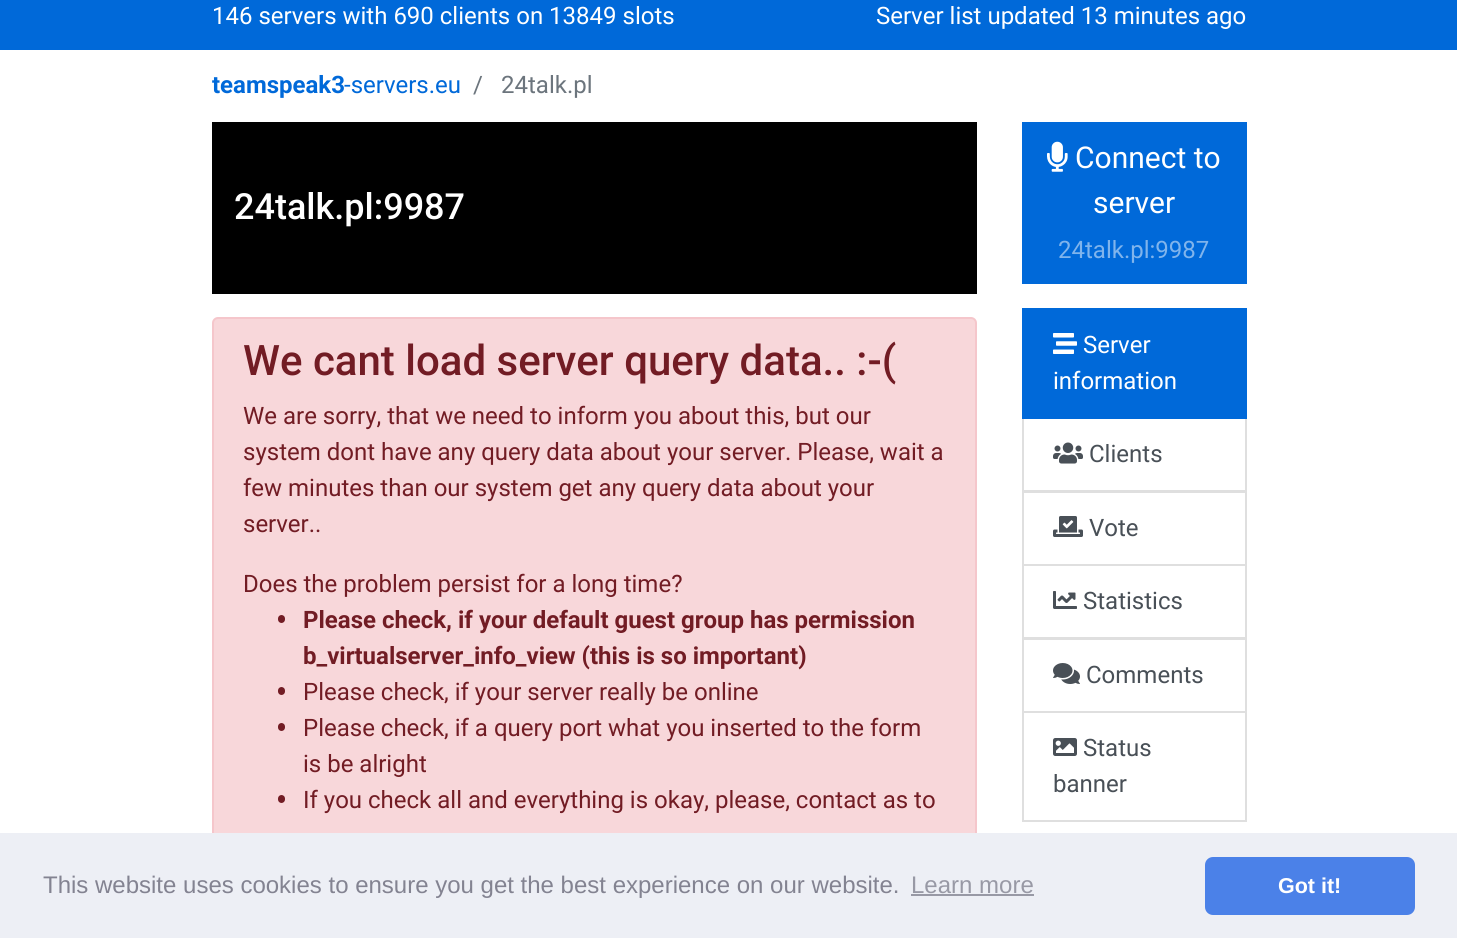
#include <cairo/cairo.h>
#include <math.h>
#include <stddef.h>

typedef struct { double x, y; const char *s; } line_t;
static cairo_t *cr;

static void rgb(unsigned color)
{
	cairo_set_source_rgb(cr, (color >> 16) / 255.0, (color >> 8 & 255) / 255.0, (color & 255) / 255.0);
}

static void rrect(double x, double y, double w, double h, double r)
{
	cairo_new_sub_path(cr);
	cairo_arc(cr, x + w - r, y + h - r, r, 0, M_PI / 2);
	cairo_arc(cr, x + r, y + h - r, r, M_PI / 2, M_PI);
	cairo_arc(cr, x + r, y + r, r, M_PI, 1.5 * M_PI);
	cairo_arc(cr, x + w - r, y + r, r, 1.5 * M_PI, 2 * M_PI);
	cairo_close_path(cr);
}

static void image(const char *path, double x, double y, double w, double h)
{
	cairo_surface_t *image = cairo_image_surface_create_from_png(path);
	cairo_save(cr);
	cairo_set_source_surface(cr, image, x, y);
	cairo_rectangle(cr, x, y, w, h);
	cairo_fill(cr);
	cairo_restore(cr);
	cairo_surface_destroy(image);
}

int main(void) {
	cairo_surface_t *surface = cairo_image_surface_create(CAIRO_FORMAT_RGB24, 1457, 938);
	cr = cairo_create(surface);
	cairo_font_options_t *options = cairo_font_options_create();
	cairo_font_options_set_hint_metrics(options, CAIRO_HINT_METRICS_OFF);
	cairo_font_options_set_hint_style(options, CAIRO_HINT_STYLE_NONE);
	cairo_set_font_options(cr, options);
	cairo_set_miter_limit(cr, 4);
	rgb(0xffffff);
	cairo_paint(cr);
	rgb(0x0069d9);
	cairo_rectangle(cr, 0, 0, 1457, 50);
	cairo_fill(cr);
	rgb(0x000000);
	cairo_rectangle(cr, 212, 122, 765, 172);
	cairo_fill(cr);
	rgb(0xf8d7da);
	rrect(213, 318, 763, 578, 5);
	cairo_fill_preserve(cr);
	rgb(0xf5c6cb);
	cairo_stroke(cr);
	rgb(0x721c24);
	rrect(278, 615, 7, 8, 3.5);
	cairo_fill(cr);
	rrect(278, 687, 7, 8, 3.5);
	cairo_fill(cr);
	rrect(278, 723, 7, 8, 3.5);
	cairo_fill(cr);
	rrect(278, 795, 7, 8, 3.5);
	cairo_fill(cr);
	rgb(0x0069d9);
	cairo_rectangle(cr, 1022, 122, 225, 162);
	cairo_fill(cr);
	image("img/1.png", 1047, 141, 21, 31);
	cairo_rectangle(cr, 1023, 418, 223, 73);
	rgb(0xdfdfdf);
	cairo_stroke(cr);
	rgb(0x0069d9);
	cairo_rectangle(cr, 1022, 308, 225, 111);
	cairo_fill(cr);
	image("img/2.png", 1053, 333, 24, 21);
	image("img/3.png", 1053, 442, 30, 22);
	cairo_rectangle(cr, 1023, 492, 223, 73);
	rgb(0xdfdfdf);
	cairo_stroke(cr);
	image("img/4.png", 1053, 516, 30, 21);
	cairo_rectangle(cr, 1023, 565, 223, 73);
	cairo_stroke(cr);
	image("img/5.png", 1053, 591, 24, 18);
	cairo_rectangle(cr, 1023, 639, 223, 73);
	cairo_stroke(cr);
	image("img/6.png", 1053, 663, 27, 21);
	cairo_rectangle(cr, 1023, 712, 223, 109);
	cairo_stroke(cr);
	image("img/7.png", 1053, 738, 24, 18);
	rgb(0xedeff5);
	cairo_rectangle(cr, 0, 833, 1457, 105);
	cairo_fill(cr);
	rgb(0x9899a5);
	cairo_rectangle(cr, 911, 894, 123, 2);
	cairo_fill(cr);
	rgb(0x4b81e8);
	rrect(1205, 857, 210, 58, 8);
	cairo_fill(cr);
	cairo_select_font_face(cr, "Roboto", CAIRO_FONT_SLANT_NORMAL, CAIRO_FONT_WEIGHT_NORMAL);
	cairo_set_font_size(cr, 24);
	rgb(0xffffff);
	cairo_move_to(cr, 212, 24);
	cairo_show_text(cr, "146 servers with 690 clients on 13849 slots");
	cairo_move_to(cr, 876, 24);
	cairo_show_text(cr, "Server list updated 13 minutes ago");
	cairo_select_font_face(cr, "Roboto", CAIRO_FONT_SLANT_NORMAL, CAIRO_FONT_WEIGHT_BOLD);
	rgb(0x0069d9);
	cairo_move_to(cr, 212, 93);
	cairo_show_text(cr, "teamspeak3");
	cairo_select_font_face(cr, "Roboto", CAIRO_FONT_SLANT_NORMAL, CAIRO_FONT_WEIGHT_NORMAL);
	cairo_move_to(cr, 344, 93);
	cairo_show_text(cr, "-servers.eu");
	rgb(0x6c757d);
	cairo_move_to(cr, 473, 93);
	cairo_show_text(cr, "/");
	cairo_move_to(cr, 501, 93);
	cairo_show_text(cr, "24talk.pl");
	cairo_select_font_face(cr, "Roboto Medium", CAIRO_FONT_SLANT_NORMAL, CAIRO_FONT_WEIGHT_NORMAL);
	cairo_set_font_size(cr, 36);
	rgb(0xffffff);
	cairo_move_to(cr, 234, 219);
	cairo_show_text(cr, "24talk.pl:9987");
	cairo_set_font_size(cr, 42);
	rgb(0x721c24);
	cairo_move_to(cr, 243, 375);
	cairo_show_text(cr, "We cant load server query data.. :-(");
	cairo_select_font_face(cr, "Roboto", CAIRO_FONT_SLANT_NORMAL, CAIRO_FONT_WEIGHT_NORMAL);
	cairo_set_font_size(cr, 24);
	{
		static const line_t items[] = {
			{243, 424, "We are sorry, that we need to inform you about this, but our"},
			{243, 460, "system dont have any query data about your server. Please, wait a"},
			{243, 496, "few minutes than our system get any query data about your"},
			{243, 532, "server.."},
			{243, 592, "Does the problem persist for a long time?"},
		};
		for (size_t i = 0; i < sizeof items / sizeof *items; i++) {
			cairo_move_to(cr, items[i].x, items[i].y);
			cairo_show_text(cr, items[i].s);
		}
	}
	cairo_select_font_face(cr, "Roboto", CAIRO_FONT_SLANT_NORMAL, CAIRO_FONT_WEIGHT_BOLD);
	cairo_move_to(cr, 303, 628);
	cairo_show_text(cr, "Please check, if your default guest group has permission");
	cairo_move_to(cr, 303, 664);
	cairo_show_text(cr, "b_virtualserver_info_view (this is so important)");
	cairo_select_font_face(cr, "Roboto", CAIRO_FONT_SLANT_NORMAL, CAIRO_FONT_WEIGHT_NORMAL);
	{
		static const line_t items[] = {
			{303, 700, "Please check, if your server really be online"},
			{303, 736, "Please check, if a query port what you inserted to the form"},
			{303, 772, "is be alright"},
			{303, 808, "If you check all and everything is okay, please, contact as to"},
		};
		for (size_t i = 0; i < sizeof items / sizeof *items; i++) {
			cairo_move_to(cr, items[i].x, items[i].y);
			cairo_show_text(cr, items[i].s);
		}
	}
	cairo_set_font_size(cr, 30);
	rgb(0xffffff);
	cairo_move_to(cr, 1075, 168);
	cairo_show_text(cr, "Connect to");
	cairo_move_to(cr, 1093, 213);
	cairo_show_text(cr, "server");
	cairo_set_font_size(cr, 24);
	rgb(0x80b4ec);
	cairo_move_to(cr, 1058, 258);
	cairo_show_text(cr, "24talk.pl:9987");
	rgb(0xffffff);
	cairo_move_to(cr, 1083, 353);
	cairo_show_text(cr, "Server");
	cairo_move_to(cr, 1053, 389);
	cairo_show_text(cr, "information");
	rgb(0x495057);
	{
		static const line_t items[] = {
			{1089, 462, "Clients"},
			{1089, 536, "Vote"},
			{1083, 609, "Statistics"},
			{1086, 683, "Comments"},
			{1083, 756, "Status"},
			{1053, 792, "banner"},
		};
		for (size_t i = 0; i < sizeof items / sizeof *items; i++) {
			cairo_move_to(cr, items[i].x, items[i].y);
			cairo_show_text(cr, items[i].s);
		}
	}
	cairo_select_font_face(cr, "Liberation Sans", CAIRO_FONT_SLANT_NORMAL, CAIRO_FONT_WEIGHT_NORMAL);
	rgb(0x838391);
	cairo_move_to(cr, 43, 893);
	cairo_show_text(cr, "This website uses cookies to ensure you get the best experience on our website.");
	rgb(0x9899a5);
	cairo_move_to(cr, 911, 893);
	cairo_show_text(cr, "Learn more");
	cairo_select_font_face(cr, "Liberation Sans", CAIRO_FONT_SLANT_NORMAL, CAIRO_FONT_WEIGHT_BOLD);
	cairo_set_font_size(cr, 21.5);
	rgb(0xffffff);
	cairo_move_to(cr, 1278, 893);
	cairo_show_text(cr, "Got it!");
	cairo_surface_write_to_png(surface, "page.png");
	cairo_font_options_destroy(options);
	cairo_destroy(cr);
	cairo_surface_destroy(surface);
	return 0;
}
